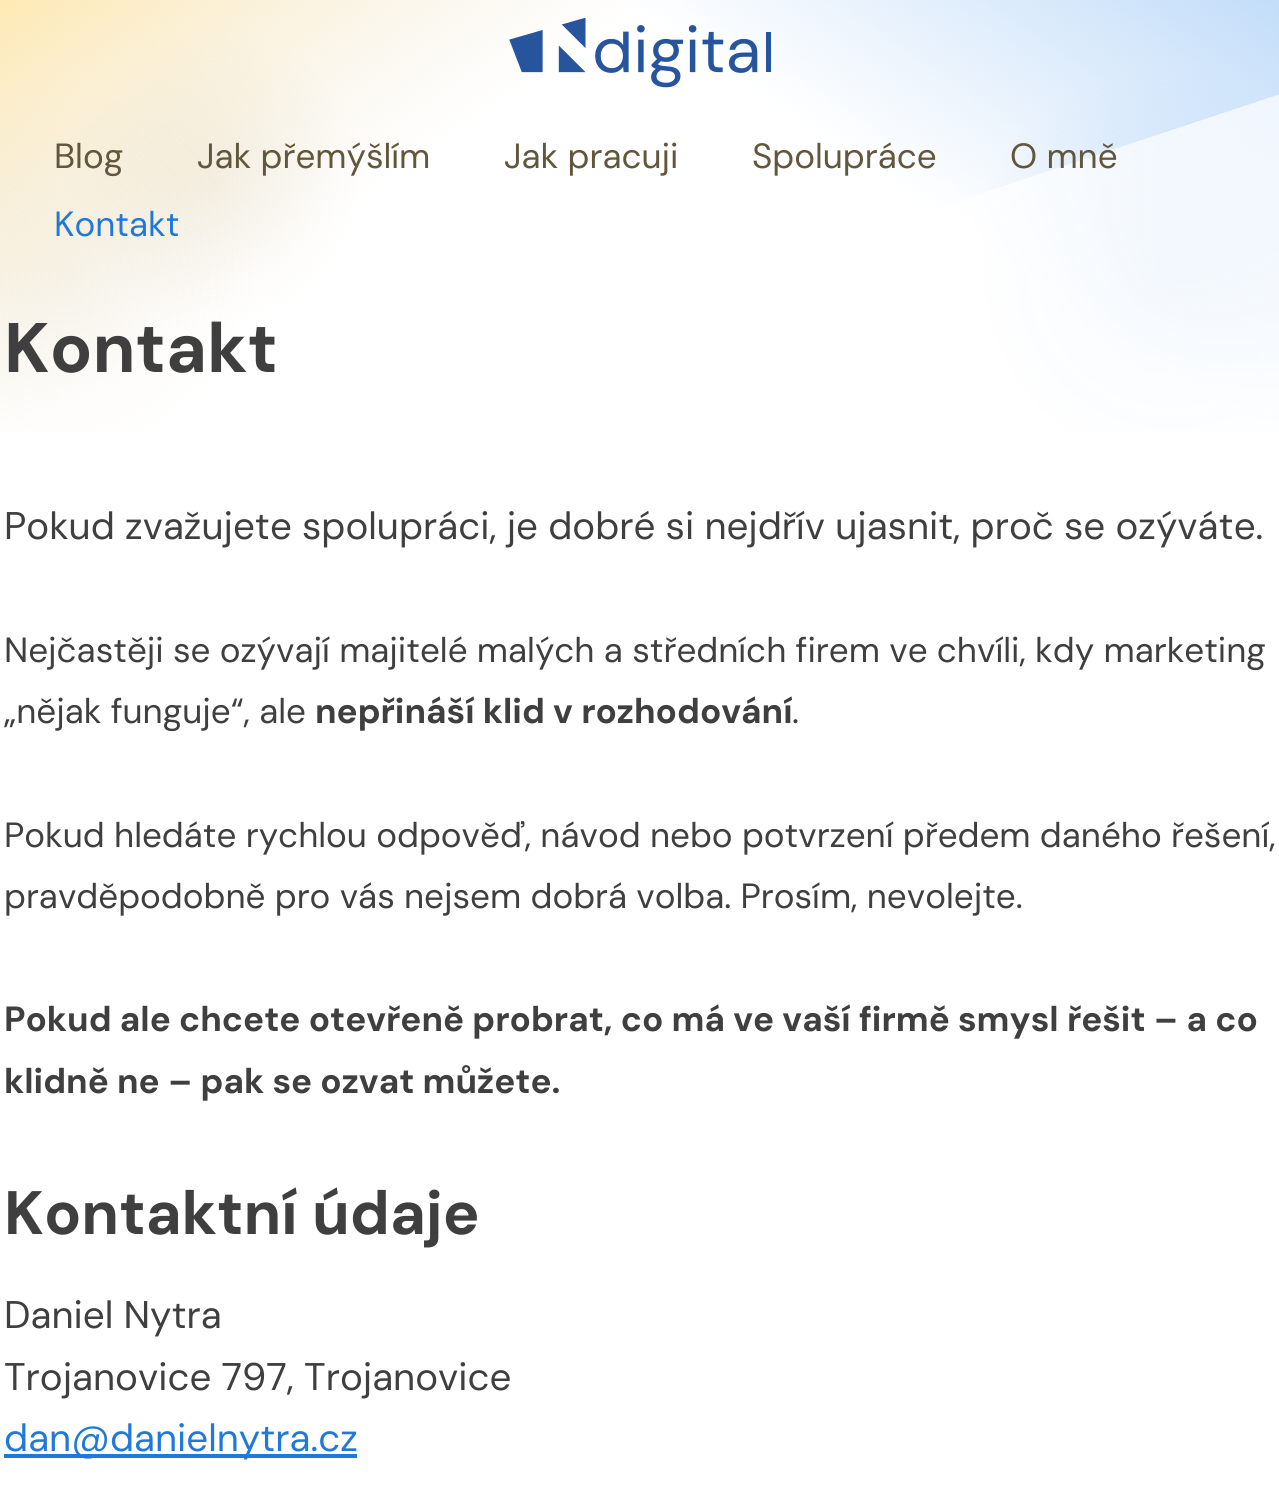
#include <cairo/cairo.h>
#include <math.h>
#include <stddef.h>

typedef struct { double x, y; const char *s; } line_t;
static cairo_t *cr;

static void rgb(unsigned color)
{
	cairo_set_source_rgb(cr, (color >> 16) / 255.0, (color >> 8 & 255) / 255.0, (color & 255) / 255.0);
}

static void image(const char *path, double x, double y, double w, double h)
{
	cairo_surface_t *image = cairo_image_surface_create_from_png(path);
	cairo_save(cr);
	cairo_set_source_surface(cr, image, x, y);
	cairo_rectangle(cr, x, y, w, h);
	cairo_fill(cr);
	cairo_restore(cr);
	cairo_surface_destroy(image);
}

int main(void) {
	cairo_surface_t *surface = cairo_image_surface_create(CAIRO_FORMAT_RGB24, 1279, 1500);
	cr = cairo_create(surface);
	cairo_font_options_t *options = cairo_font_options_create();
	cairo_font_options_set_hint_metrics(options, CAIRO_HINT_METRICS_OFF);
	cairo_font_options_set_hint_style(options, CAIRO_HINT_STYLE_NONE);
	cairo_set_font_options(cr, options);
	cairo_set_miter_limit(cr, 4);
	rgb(0xffffff);
	cairo_paint(cr);
	image("img/1.png", 0, 0, 1279, 433);
	image("img/2.png", 509, 18, 262, 70);
	rgb(0x2079d9);
	cairo_rectangle(cr, 4, 1454, 353, 4);
	cairo_fill(cr);
	cairo_select_font_face(cr, "DM Sans", CAIRO_FONT_SLANT_NORMAL, CAIRO_FONT_WEIGHT_NORMAL);
	cairo_set_font_size(cr, 35);
	rgb(0x62573c);
	{
		static const line_t items[] = {
			{54, 168, "Blog"},
			{197, 168, "Jak přemýšlím"},
			{504, 168, "Jak pracuji"},
			{752, 168, "Spolupráce"},
			{1010, 168, "O mně"},
		};
		for (size_t i = 0; i < sizeof items / sizeof *items; i++) {
			cairo_move_to(cr, items[i].x, items[i].y);
			cairo_show_text(cr, items[i].s);
		}
	}
	rgb(0x2079d9);
	cairo_move_to(cr, 54, 236);
	cairo_show_text(cr, "Kontakt");
	cairo_select_font_face(cr, "DM Sans", CAIRO_FONT_SLANT_NORMAL, CAIRO_FONT_WEIGHT_BOLD);
	cairo_set_font_size(cr, 70);
	rgb(0x3f3f3f);
	cairo_move_to(cr, 4, 372);
	cairo_show_text(cr, "Kontakt");
	cairo_select_font_face(cr, "DM Sans", CAIRO_FONT_SLANT_NORMAL, CAIRO_FONT_WEIGHT_NORMAL);
	cairo_set_font_size(cr, 38.5);
	cairo_move_to(cr, 4, 539);
	cairo_show_text(cr, "Pokud zvažujete spolupráci, je dobré si nejdřív ujasnit, proč se ozýváte.");
	cairo_set_font_size(cr, 35);
	cairo_move_to(cr, 4, 662);
	cairo_show_text(cr, "Nejčastěji se ozývají majitelé malých a středních firem ve chvíli, kdy marketing");
	cairo_move_to(cr, 4, 723);
	cairo_show_text(cr, "„nějak funguje“, ale");
	cairo_select_font_face(cr, "DM Sans", CAIRO_FONT_SLANT_NORMAL, CAIRO_FONT_WEIGHT_BOLD);
	cairo_move_to(cr, 315, 723);
	cairo_show_text(cr, "nepřináší klid v rozhodování");
	cairo_select_font_face(cr, "DM Sans", CAIRO_FONT_SLANT_NORMAL, CAIRO_FONT_WEIGHT_NORMAL);
	{
		static const line_t items[] = {
			{792, 723, "."},
			{4, 847, "Pokud hledáte rychlou odpověď, návod nebo potvrzení předem daného řešení,"},
			{4, 908, "pravděpodobně pro vás nejsem dobrá volba. Prosím, nevolejte."},
		};
		for (size_t i = 0; i < sizeof items / sizeof *items; i++) {
			cairo_move_to(cr, items[i].x, items[i].y);
			cairo_show_text(cr, items[i].s);
		}
	}
	cairo_select_font_face(cr, "DM Sans", CAIRO_FONT_SLANT_NORMAL, CAIRO_FONT_WEIGHT_BOLD);
	cairo_move_to(cr, 4, 1031);
	cairo_show_text(cr, "Pokud ale chcete otevřeně probrat, co má ve vaší firmě smysl řešit – a co");
	cairo_move_to(cr, 4, 1093);
	cairo_show_text(cr, "klidně ne – pak se ozvat můžete.");
	cairo_set_font_size(cr, 61.25);
	cairo_move_to(cr, 4, 1234);
	cairo_show_text(cr, "Kontaktní údaje");
	cairo_select_font_face(cr, "DM Sans", CAIRO_FONT_SLANT_NORMAL, CAIRO_FONT_WEIGHT_NORMAL);
	cairo_set_font_size(cr, 38.5);
	cairo_move_to(cr, 4, 1328);
	cairo_show_text(cr, "Daniel Nytra");
	cairo_move_to(cr, 4, 1390);
	cairo_show_text(cr, "Trojanovice 797, Trojanovice");
	rgb(0x2079d9);
	cairo_move_to(cr, 4, 1451);
	cairo_show_text(cr, "dan@danielnytra.cz");
	cairo_surface_write_to_png(surface, "page.png");
	cairo_font_options_destroy(options);
	cairo_destroy(cr);
	cairo_surface_destroy(surface);
	return 0;
}
